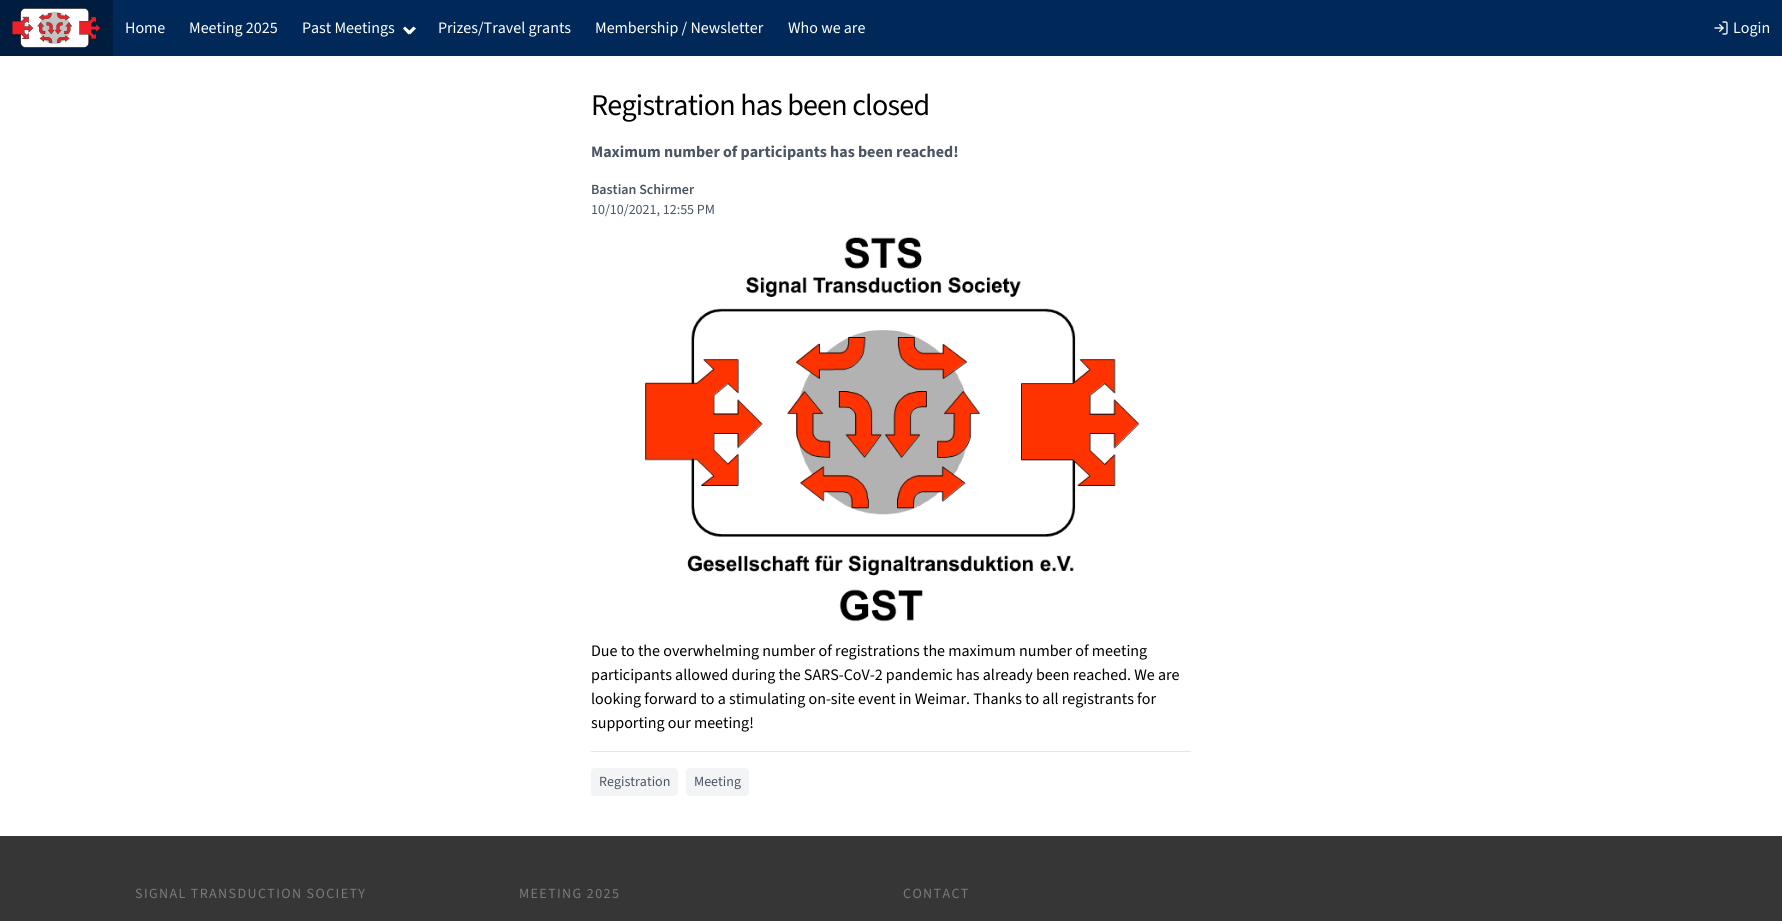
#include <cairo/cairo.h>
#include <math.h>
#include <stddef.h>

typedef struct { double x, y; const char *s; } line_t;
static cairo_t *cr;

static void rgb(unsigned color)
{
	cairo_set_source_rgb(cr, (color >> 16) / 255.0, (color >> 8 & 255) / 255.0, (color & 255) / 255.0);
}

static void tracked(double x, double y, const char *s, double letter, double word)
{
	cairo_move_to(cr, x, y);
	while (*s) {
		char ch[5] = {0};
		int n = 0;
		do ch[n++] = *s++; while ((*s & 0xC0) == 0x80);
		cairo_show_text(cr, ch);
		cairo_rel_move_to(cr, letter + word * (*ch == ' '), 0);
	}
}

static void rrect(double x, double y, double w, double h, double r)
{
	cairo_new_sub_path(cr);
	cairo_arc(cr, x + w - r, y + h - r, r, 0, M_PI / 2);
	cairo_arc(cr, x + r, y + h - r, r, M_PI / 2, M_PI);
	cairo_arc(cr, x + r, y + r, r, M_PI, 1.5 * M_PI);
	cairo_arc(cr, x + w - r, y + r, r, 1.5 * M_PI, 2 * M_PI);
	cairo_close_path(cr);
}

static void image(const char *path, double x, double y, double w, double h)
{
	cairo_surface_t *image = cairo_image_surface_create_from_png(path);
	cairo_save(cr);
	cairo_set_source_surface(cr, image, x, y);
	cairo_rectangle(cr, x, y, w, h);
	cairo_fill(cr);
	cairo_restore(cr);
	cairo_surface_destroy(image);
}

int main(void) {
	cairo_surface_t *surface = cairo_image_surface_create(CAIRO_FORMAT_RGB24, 1782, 921);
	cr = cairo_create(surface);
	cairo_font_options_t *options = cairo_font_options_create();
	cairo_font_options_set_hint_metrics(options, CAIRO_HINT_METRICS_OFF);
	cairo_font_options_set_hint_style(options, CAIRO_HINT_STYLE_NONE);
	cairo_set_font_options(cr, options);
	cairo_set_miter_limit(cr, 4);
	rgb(0xffffff);
	cairo_paint(cr);
	rgb(0x002959);
	cairo_rectangle(cr, 113, 0, 1669, 56);
	cairo_fill(cr);
	rgb(0x001d40);
	cairo_rectangle(cr, 0, 0, 113, 56);
	cairo_fill(cr);
	image("img/1.png", 12, 8, 89, 40);
	rgb(0xffffff);
	cairo_new_path(cr);
	cairo_move_to(cr, 416, 28.5);
	cairo_line_to(cr, 410, 34.5);
	cairo_line_to(cr, 408, 32);
	cairo_line_to(cr, 413.5, 26.5);
	cairo_close_path(cr);
	cairo_fill(cr);
	cairo_new_path(cr);
	cairo_move_to(cr, 411, 32);
	cairo_line_to(cr, 408.5, 34.5);
	cairo_line_to(cr, 403, 28.5);
	cairo_line_to(cr, 405, 26.5);
	cairo_close_path(cr);
	cairo_fill(cr);
	image("img/2.png", 1714, 21, 14, 14);
	image("img/3.png", 645, 237, 495, 385);
	rgb(0xe5e7eb);
	cairo_rectangle(cr, 591, 751, 600, 1);
	cairo_fill(cr);
	rgb(0xf3f4f6);
	rrect(591, 768, 87, 28, 4);
	cairo_fill(cr);
	rrect(686, 768, 63, 28, 4);
	cairo_fill(cr);
	rgb(0x363636);
	cairo_rectangle(cr, 0, 836, 1782, 85);
	cairo_fill(cr);
	cairo_select_font_face(cr, "Source Sans 3", CAIRO_FONT_SLANT_NORMAL, CAIRO_FONT_WEIGHT_NORMAL);
	cairo_set_font_size(cr, 16);
	rgb(0xffffff);
	{
		static const line_t items[] = {
			{125, 33, "Home"},
			{189, 33, "Meeting 2025"},
			{302, 33, "Past Meetings"},
			{438, 33, "Prizes/Travel grants"},
			{595, 33, "Membership / Newsletter"},
			{788, 33, "Who we are"},
			{1733, 33, "Login"},
		};
		for (size_t i = 0; i < sizeof items / sizeof *items; i++) {
			cairo_move_to(cr, items[i].x, items[i].y);
			cairo_show_text(cr, items[i].s);
		}
	}
	cairo_set_font_size(cr, 30);
	rgb(0x000000);
	tracked(591, 115, "Registration has been closed", -0.75, 0);
	cairo_select_font_face(cr, "Source Sans 3", CAIRO_FONT_SLANT_NORMAL, CAIRO_FONT_WEIGHT_BOLD);
	cairo_set_font_size(cr, 16);
	rgb(0x4b5563);
	cairo_move_to(cr, 591, 157);
	cairo_show_text(cr, "Maximum number of participants has been reached!");
	cairo_select_font_face(cr, "Source Sans 3 SemiBold", CAIRO_FONT_SLANT_NORMAL, CAIRO_FONT_WEIGHT_NORMAL);
	cairo_set_font_size(cr, 14);
	cairo_move_to(cr, 591, 194);
	cairo_show_text(cr, "Bastian Schirmer");
	cairo_select_font_face(cr, "Source Sans 3", CAIRO_FONT_SLANT_NORMAL, CAIRO_FONT_WEIGHT_NORMAL);
	cairo_move_to(cr, 591, 214);
	cairo_show_text(cr, "10/10/2021, 12:55 PM");
	cairo_set_font_size(cr, 16);
	rgb(0x000000);
	{
		static const line_t items[] = {
			{591, 656, "Due to the overwhelming number of registrations the maximum number of meeting"},
			{591, 680, "participants allowed during the SARS-CoV-2 pandemic has already been reached. We are"},
			{591, 704, "looking forward to a stimulating on-site event in Weimar. Thanks to all registrants for"},
			{591, 728, "supporting our meeting!"},
		};
		for (size_t i = 0; i < sizeof items / sizeof *items; i++) {
			cairo_move_to(cr, items[i].x, items[i].y);
			cairo_show_text(cr, items[i].s);
		}
	}
	cairo_set_font_size(cr, 14);
	rgb(0x4b5563);
	cairo_move_to(cr, 599, 786);
	cairo_show_text(cr, "Registration");
	cairo_move_to(cr, 694, 786);
	cairo_show_text(cr, "Meeting");
	rgb(0x7a7a7a);
	{
		static const line_t items[] = {
			{135, 898, "SIGNAL TRANSDUCTION SOCIETY"},
			{519, 898, "MEETING 2025"},
			{903, 898, "CONTACT"},
		};
		for (size_t i = 0; i < sizeof items / sizeof *items; i++) {
			tracked(items[i].x, items[i].y, items[i].s, 1.4, 0);
		}
	}
	cairo_surface_write_to_png(surface, "page.png");
	cairo_font_options_destroy(options);
	cairo_destroy(cr);
	cairo_surface_destroy(surface);
	return 0;
}
